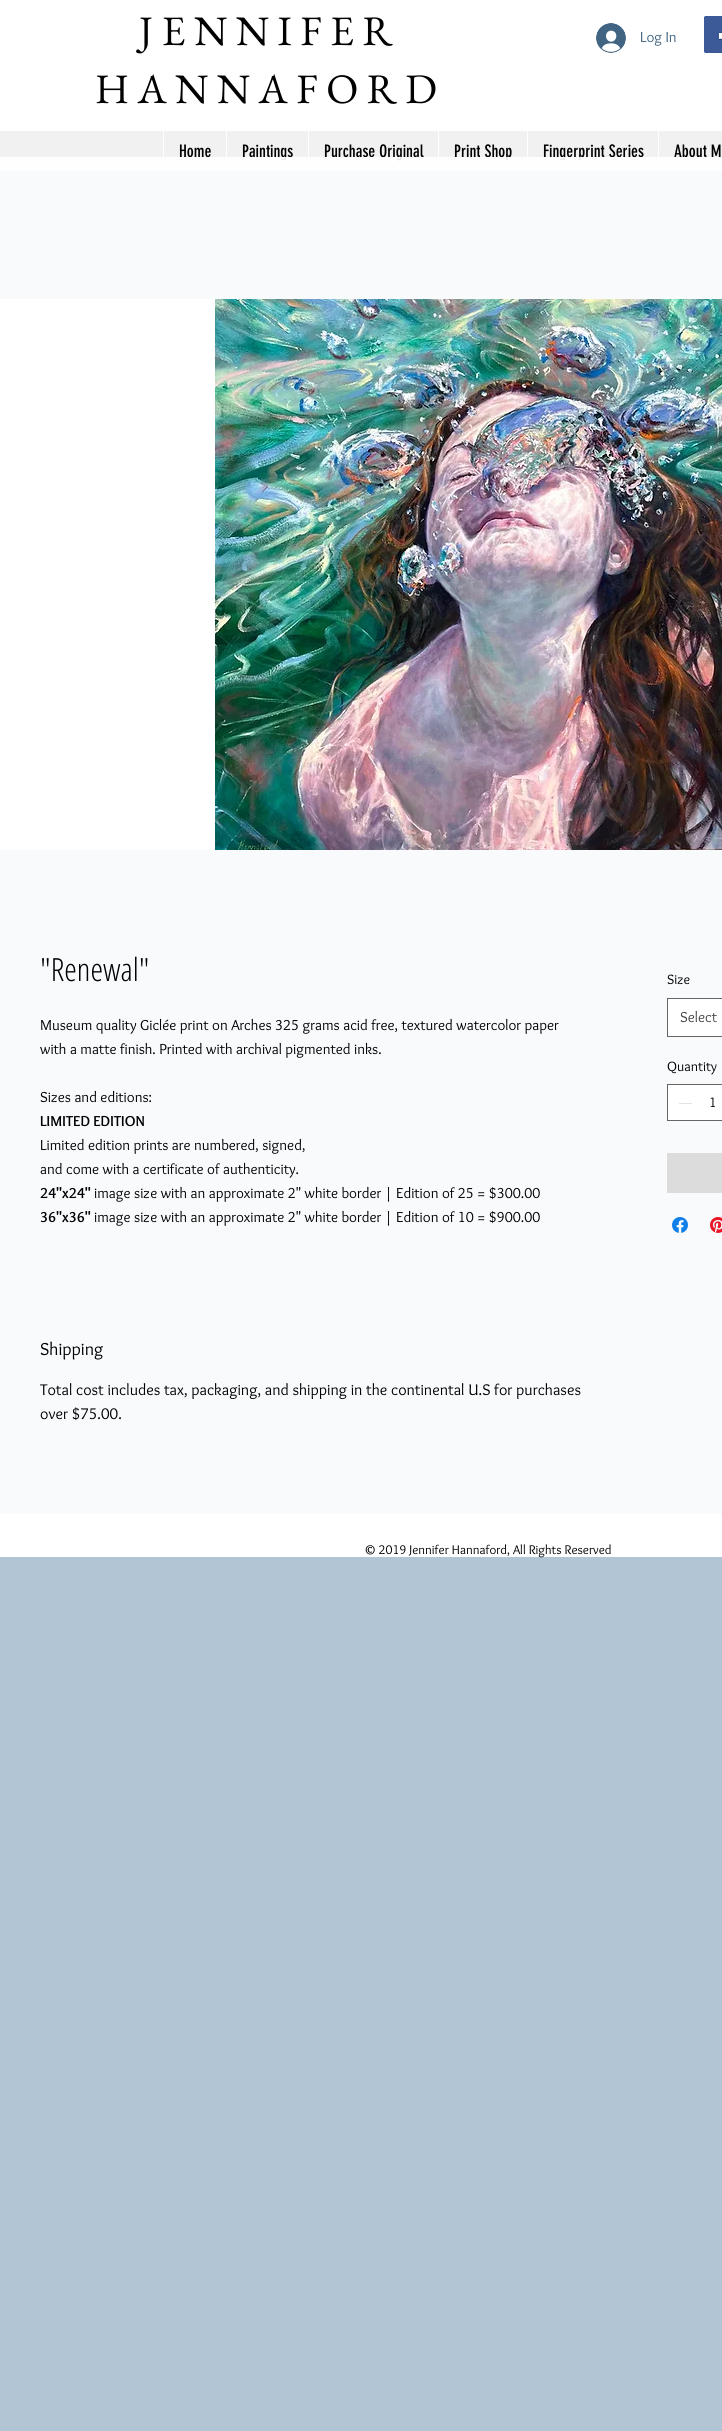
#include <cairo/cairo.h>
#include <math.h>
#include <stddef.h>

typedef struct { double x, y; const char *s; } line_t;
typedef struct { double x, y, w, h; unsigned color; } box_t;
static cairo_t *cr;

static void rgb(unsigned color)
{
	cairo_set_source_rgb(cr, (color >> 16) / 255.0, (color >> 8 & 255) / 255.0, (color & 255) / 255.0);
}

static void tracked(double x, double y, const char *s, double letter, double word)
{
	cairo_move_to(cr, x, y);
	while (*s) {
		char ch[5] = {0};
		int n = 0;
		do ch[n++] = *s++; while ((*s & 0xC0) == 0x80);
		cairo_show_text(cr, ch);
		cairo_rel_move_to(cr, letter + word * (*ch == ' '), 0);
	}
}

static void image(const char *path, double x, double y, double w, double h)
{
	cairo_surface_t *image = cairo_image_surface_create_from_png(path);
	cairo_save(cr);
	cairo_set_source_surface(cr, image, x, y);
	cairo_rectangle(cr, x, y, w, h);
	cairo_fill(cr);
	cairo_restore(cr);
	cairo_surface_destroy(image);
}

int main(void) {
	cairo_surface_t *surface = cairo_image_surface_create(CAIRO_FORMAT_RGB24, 722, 2431);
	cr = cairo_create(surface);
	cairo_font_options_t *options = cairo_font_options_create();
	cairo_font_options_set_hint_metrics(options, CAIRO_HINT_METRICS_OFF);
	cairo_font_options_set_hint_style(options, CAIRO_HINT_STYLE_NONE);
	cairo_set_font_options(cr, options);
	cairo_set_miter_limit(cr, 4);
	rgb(0xb2c5d5);
	cairo_paint(cr);
	rgb(0xffffff);
	cairo_rectangle(cr, 0, 0, 722, 131);
	cairo_fill(cr);
	image("img/1.png", 596, 23, 30, 30);
	image("img/2.png", 704, 16, 18, 37);
	{
		static const box_t items[] = {
			{0, 131, 722, 40, 0xf1f1f1},
			{163, 131, 1, 40, 0xffffff},
			{226, 131, 1, 40, 0xffffff},
			{308, 131, 1, 40, 0xffffff},
			{438, 131, 1, 40, 0xffffff},
			{527, 131, 1, 40, 0xffffff},
			{658, 131, 1, 40, 0xffffff},
			{0, 1514, 722, 43, 0xffffff},
		};
		for (size_t i = 0; i < sizeof items / sizeof *items; i++) {
			rgb(items[i].color);
			cairo_rectangle(cr, items[i].x, items[i].y, items[i].w, items[i].h);
			cairo_fill(cr);
		}
	}
	cairo_select_font_face(cr, "EB Garamond", CAIRO_FONT_SLANT_NORMAL, CAIRO_FONT_WEIGHT_NORMAL);
	cairo_set_font_size(cr, 42);
	rgb(0x000000);
	tracked(139, 45, "JENNIFER", 8.5, 0);
	tracked(95, 103, "HANNAFORD", 8.5, 0);
	cairo_select_font_face(cr, "Overlock", CAIRO_FONT_SLANT_NORMAL, CAIRO_FONT_WEIGHT_NORMAL);
	cairo_set_font_size(cr, 15);
	rgb(0x416482);
	cairo_move_to(cr, 640, 42);
	cairo_show_text(cr, "Log In");
	cairo_select_font_face(cr, "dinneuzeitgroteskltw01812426", CAIRO_FONT_SLANT_NORMAL, CAIRO_FONT_WEIGHT_NORMAL);
	cairo_set_font_size(cr, 17);
	rgb(0x000000);
	{
		static const line_t items[] = {
			{179, 157, "Home"},
			{242, 157, "Paintings"},
			{324, 157, "Purchase Original"},
			{454, 157, "Print Shop"},
			{543, 157, "Fingerprint Series"},
			{674, 157, "About M"},
		};
		for (size_t i = 0; i < sizeof items / sizeof *items; i++) {
			cairo_move_to(cr, items[i].x, items[i].y);
			cairo_show_text(cr, items[i].s);
		}
	}
	cairo_set_source_rgba(cr, 1, 1, 1, 0.91);
	cairo_rectangle(cr, 0, 157, 722, 1357);
	cairo_fill(cr);
	rgb(0xffffff);
	cairo_rectangle(cr, 0, 299, 215, 551);
	cairo_fill(cr);
	image("img/3.png", 215, 299, 507, 551);
	cairo_select_font_face(cr, "Open Sans Condensed Light", CAIRO_FONT_SLANT_NORMAL, CAIRO_FONT_WEIGHT_NORMAL);
	cairo_set_font_size(cr, 32);
	rgb(0x000000);
	cairo_move_to(cr, 40, 981);
	cairo_show_text(cr, "\"Renewal\"");
	cairo_select_font_face(cr, "Overlock", CAIRO_FONT_SLANT_NORMAL, CAIRO_FONT_WEIGHT_NORMAL);
	cairo_set_font_size(cr, 15);
	{
		static const line_t items[] = {
			{40, 1030, "Museum quality Giclée print on Arches 325 grams acid free, textured watercolor paper"},
			{40, 1054, "with a matte finish. Printed with archival pigmented inks."},
			{40, 1102, "Sizes and editions:"},
		};
		for (size_t i = 0; i < sizeof items / sizeof *items; i++) {
			cairo_move_to(cr, items[i].x, items[i].y);
			cairo_show_text(cr, items[i].s);
		}
	}
	cairo_select_font_face(cr, "Overlock", CAIRO_FONT_SLANT_NORMAL, CAIRO_FONT_WEIGHT_BOLD);
	cairo_move_to(cr, 40, 1126);
	cairo_show_text(cr, "LIMITED EDITION");
	cairo_select_font_face(cr, "Overlock", CAIRO_FONT_SLANT_NORMAL, CAIRO_FONT_WEIGHT_NORMAL);
	cairo_move_to(cr, 40, 1150);
	cairo_show_text(cr, "Limited edition prints are numbered, signed,");
	cairo_move_to(cr, 40, 1174);
	cairo_show_text(cr, "and come with a certificate of authenticity.");
	cairo_select_font_face(cr, "Overlock", CAIRO_FONT_SLANT_NORMAL, CAIRO_FONT_WEIGHT_BOLD);
	cairo_move_to(cr, 40, 1198);
	cairo_show_text(cr, "24\"x24\"");
	cairo_select_font_face(cr, "Overlock", CAIRO_FONT_SLANT_NORMAL, CAIRO_FONT_WEIGHT_NORMAL);
	cairo_move_to(cr, 94, 1198);
	cairo_show_text(cr, "image size with an approximate 2\" white border | Edition of 25 = $300.00");
	cairo_select_font_face(cr, "Overlock", CAIRO_FONT_SLANT_NORMAL, CAIRO_FONT_WEIGHT_BOLD);
	cairo_move_to(cr, 40, 1222);
	cairo_show_text(cr, "36\"x36\"");
	cairo_select_font_face(cr, "Overlock", CAIRO_FONT_SLANT_NORMAL, CAIRO_FONT_WEIGHT_NORMAL);
	cairo_move_to(cr, 94, 1222);
	cairo_show_text(cr, "image size with an approximate 2\" white border | Edition of 10 = $900.00");
	cairo_set_font_size(cr, 18);
	cairo_move_to(cr, 40, 1355);
	cairo_show_text(cr, "Shipping");
	cairo_set_font_size(cr, 16);
	cairo_move_to(cr, 40, 1395);
	cairo_show_text(cr, "Total cost includes tax, packaging, and shipping in the continental U.S for purchases");
	cairo_move_to(cr, 40, 1419);
	cairo_show_text(cr, "over $75.00.");
	cairo_set_font_size(cr, 14);
	cairo_move_to(cr, 667, 984);
	cairo_show_text(cr, "Size");
	rgb(0xffffff);
	cairo_rectangle(cr, 667.5, 998.5, 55, 38);
	cairo_fill_preserve(cr);
	rgb(0x666666);
	cairo_set_line_width(cr, 1);
	cairo_stroke(cr);
	cairo_set_font_size(cr, 15);
	rgb(0x444444);
	cairo_move_to(cr, 680, 1022);
	cairo_show_text(cr, "Select");
	cairo_set_font_size(cr, 14);
	rgb(0x000000);
	cairo_move_to(cr, 667, 1071);
	cairo_show_text(cr, "Quantity");
	rgb(0xffffff);
	cairo_rectangle(cr, 667.5, 1084.5, 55, 36);
	cairo_fill_preserve(cr);
	rgb(0x666666);
	cairo_stroke(cr);
	rgb(0xe3e3e3);
	cairo_rectangle(cr, 679, 1103, 13, 1);
	cairo_fill(cr);
	rgb(0x000000);
	cairo_move_to(cr, 709, 1107);
	cairo_show_text(cr, "1");
	rgb(0xdddcdc);
	cairo_rectangle(cr, 667, 1153, 55, 40);
	cairo_fill(cr);
	image("img/4.png", 672, 1217, 16, 16);
	image("img/5.png", 710, 1217, 12, 16);
	cairo_set_font_size(cr, 13);
	rgb(0x000000);
	cairo_move_to(cr, 364, 1554);
	cairo_show_text(cr, "© 2019 Jennifer Hannaford, All Rights Reserved");
	cairo_surface_write_to_png(surface, "page.png");
	cairo_font_options_destroy(options);
	cairo_destroy(cr);
	cairo_surface_destroy(surface);
	return 0;
}
